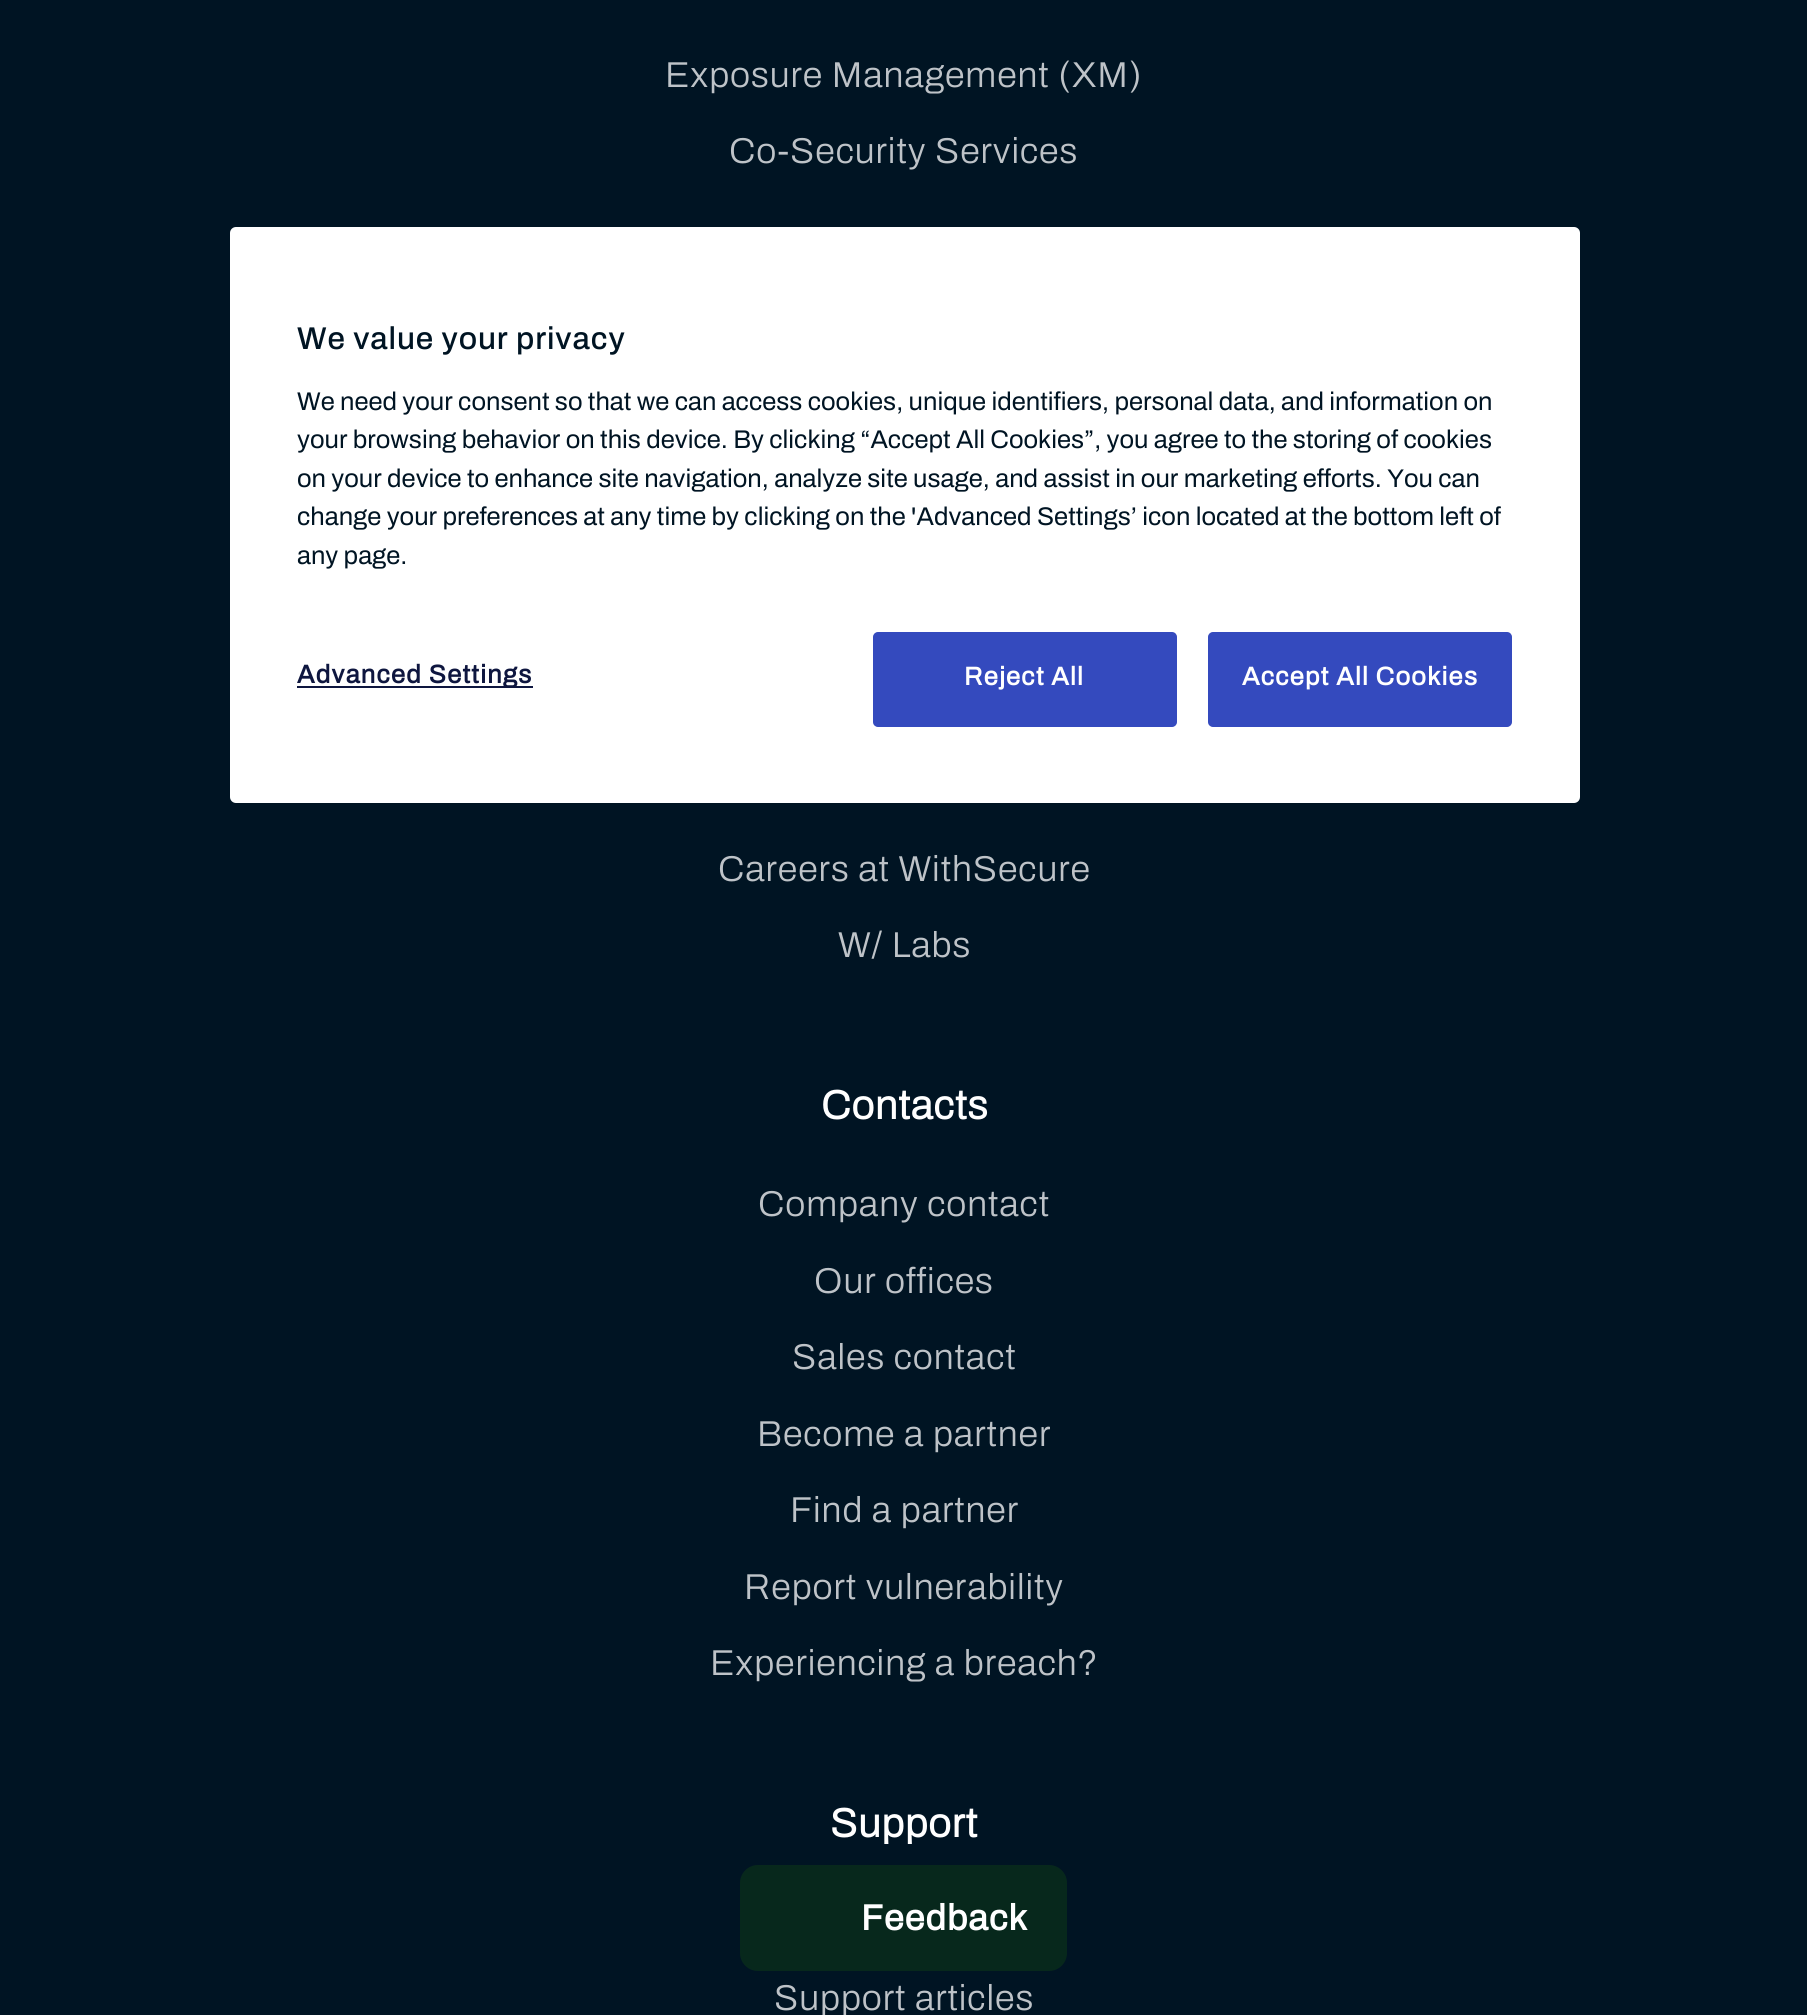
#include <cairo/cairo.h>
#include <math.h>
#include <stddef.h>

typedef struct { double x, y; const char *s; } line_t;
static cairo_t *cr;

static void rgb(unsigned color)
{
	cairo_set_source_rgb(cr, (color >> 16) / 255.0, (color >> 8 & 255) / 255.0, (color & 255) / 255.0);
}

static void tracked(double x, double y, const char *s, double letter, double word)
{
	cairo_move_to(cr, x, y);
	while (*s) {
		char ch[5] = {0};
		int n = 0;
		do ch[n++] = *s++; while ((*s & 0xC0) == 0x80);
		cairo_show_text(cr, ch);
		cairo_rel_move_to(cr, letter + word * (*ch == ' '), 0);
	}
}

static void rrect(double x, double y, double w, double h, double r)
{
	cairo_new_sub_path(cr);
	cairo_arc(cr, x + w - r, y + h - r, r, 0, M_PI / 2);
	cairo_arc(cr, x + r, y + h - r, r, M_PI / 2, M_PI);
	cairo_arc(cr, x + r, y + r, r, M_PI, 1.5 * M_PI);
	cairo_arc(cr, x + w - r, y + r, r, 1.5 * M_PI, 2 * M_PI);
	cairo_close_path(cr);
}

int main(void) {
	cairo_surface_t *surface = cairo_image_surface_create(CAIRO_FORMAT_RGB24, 1807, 2015);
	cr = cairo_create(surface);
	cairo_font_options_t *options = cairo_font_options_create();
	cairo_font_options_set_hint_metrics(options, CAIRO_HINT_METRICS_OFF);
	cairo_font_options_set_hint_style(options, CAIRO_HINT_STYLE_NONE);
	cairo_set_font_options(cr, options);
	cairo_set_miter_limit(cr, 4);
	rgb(0x001423);
	cairo_paint(cr);
	rgb(0x07281c);
	rrect(741, 1866, 325, 104, 17);
	cairo_fill_preserve(cr);
	cairo_stroke(cr);
	rgb(0xffffff);
	rrect(230, 227, 1350, 576, 6);
	cairo_fill(cr);
	rgb(0x0e163f);
	cairo_rectangle(cr, 297, 686, 236, 2);
	cairo_fill(cr);
	rgb(0x344abe);
	rrect(874, 633, 302, 93, 4);
	cairo_fill_preserve(cr);
	cairo_stroke(cr);
	rrect(1209, 633, 302, 93, 4);
	cairo_fill_preserve(cr);
	cairo_stroke(cr);
	cairo_select_font_face(cr, "Archivo Light", CAIRO_FONT_SLANT_NORMAL, CAIRO_FONT_WEIGHT_NORMAL);
	cairo_set_font_size(cr, 36);
	rgb(0xbec3c8);
	{
		static const line_t items[] = {
			{665, 87, "Exposure Management (XM)"},
			{729, 163, "Co-Security Services"},
			{718, 881, "Careers at WithSecure"},
			{838, 957, "W/ Labs"},
		};
		for (size_t i = 0; i < sizeof items / sizeof *items; i++) {
			tracked(items[i].x, items[i].y, items[i].s, 0.9, 0);
		}
	}
	cairo_select_font_face(cr, "Archivo", CAIRO_FONT_SLANT_NORMAL, CAIRO_FONT_WEIGHT_BOLD);
	cairo_set_font_size(cr, 40.5);
	rgb(0xffffff);
	tracked(821, 1119, "Contacts", 0.9, 0);
	cairo_select_font_face(cr, "Archivo Light", CAIRO_FONT_SLANT_NORMAL, CAIRO_FONT_WEIGHT_NORMAL);
	cairo_set_font_size(cr, 36);
	rgb(0xbec3c8);
	{
		static const line_t items[] = {
			{758, 1216, "Company contact"},
			{814, 1293, "Our offices"},
			{792, 1369, "Sales contact"},
			{757, 1446, "Become a partner"},
			{790, 1522, "Find a partner"},
			{744, 1599, "Report vulnerability"},
			{710, 1675, "Experiencing a breach?"},
		};
		for (size_t i = 0; i < sizeof items / sizeof *items; i++) {
			tracked(items[i].x, items[i].y, items[i].s, 0.9, 0);
		}
	}
	cairo_select_font_face(cr, "Archivo", CAIRO_FONT_SLANT_NORMAL, CAIRO_FONT_WEIGHT_BOLD);
	cairo_set_font_size(cr, 40.5);
	rgb(0xffffff);
	tracked(830, 1837, "Support", 0.9, 0);
	cairo_select_font_face(cr, "Archivo Light", CAIRO_FONT_SLANT_NORMAL, CAIRO_FONT_WEIGHT_NORMAL);
	cairo_set_font_size(cr, 36);
	rgb(0xbec3c8);
	tracked(774, 2010, "Support articles", 0.9, 0);
	cairo_select_font_face(cr, "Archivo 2", CAIRO_FONT_SLANT_NORMAL, CAIRO_FONT_WEIGHT_BOLD);
	rgb(0xffffff);
	tracked(861, 1930, "Feedback", 1, 0);
	cairo_select_font_face(cr, "Archivo Medium", CAIRO_FONT_SLANT_NORMAL, CAIRO_FONT_WEIGHT_NORMAL);
	cairo_set_font_size(cr, 31.5);
	rgb(0x001423);
	tracked(297, 349, "We value your privacy", 0.9, 0);
	cairo_select_font_face(cr, "Archivo", CAIRO_FONT_SLANT_NORMAL, CAIRO_FONT_WEIGHT_NORMAL);
	cairo_set_font_size(cr, 25.6);
	{
		static const line_t items[] = {
			{297, 410, "We need your consent so that we can access cookies, unique identifiers, personal data, and information on"},
			{297, 448, "your browsing behavior on this device. By clicking “Accept All Cookies”, you agree to the storing of cookies"},
			{297, 487, "on your device to enhance site navigation, analyze site usage, and assist in our marketing efforts. You can"},
			{297, 525, "change your preferences at any time by clicking on the 'Advanced Settings’ icon located at the bottom left of"},
			{297, 564, "any page."},
		};
		for (size_t i = 0; i < sizeof items / sizeof *items; i++) {
			cairo_move_to(cr, items[i].x, items[i].y);
			cairo_show_text(cr, items[i].s);
		}
	}
	cairo_select_font_face(cr, "Archivo 2", CAIRO_FONT_SLANT_NORMAL, CAIRO_FONT_WEIGHT_BOLD);
	rgb(0x0e163f);
	tracked(297, 683, "Advanced Settings", 1.25, 0);
	rgb(0xffffff);
	tracked(964, 685, "Reject All", 1.25, 0);
	tracked(1242, 685, "Accept All Cookies", 1.25, 0);
	cairo_surface_write_to_png(surface, "page.png");
	cairo_font_options_destroy(options);
	cairo_destroy(cr);
	cairo_surface_destroy(surface);
	return 0;
}
